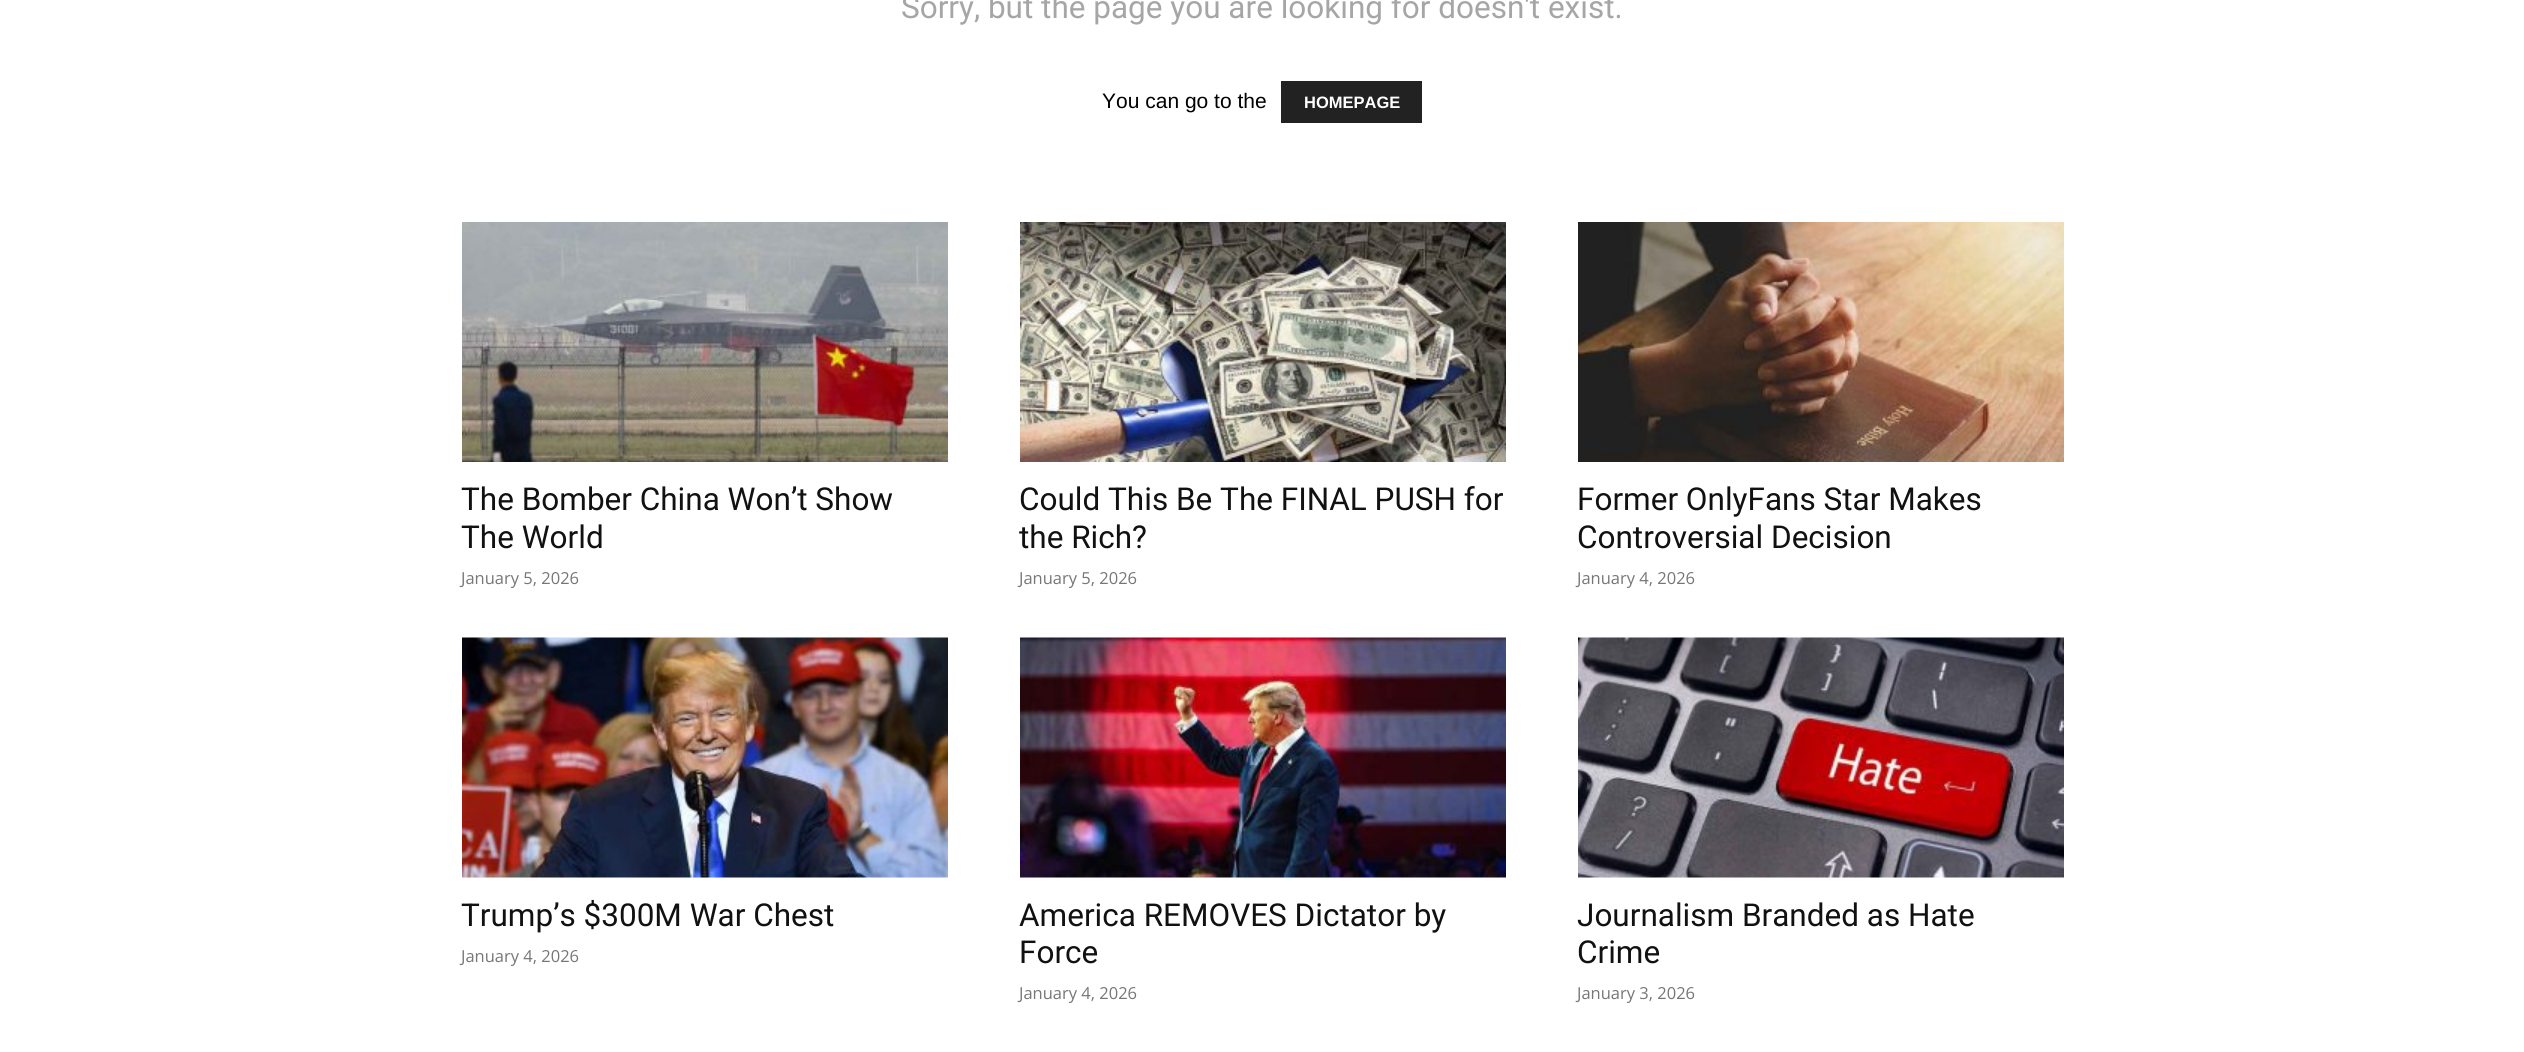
#include <cairo/cairo.h>
#include <math.h>
#include <stddef.h>

static cairo_t *cr;

static void rgb(unsigned color)
{
	cairo_set_source_rgb(cr, (color >> 16) / 255.0, (color >> 8 & 255) / 255.0, (color & 255) / 255.0);
}

static void image(const char *path, double x, double y, double w, double h)
{
	cairo_surface_t *image = cairo_image_surface_create_from_png(path);
	cairo_save(cr);
	cairo_set_source_surface(cr, image, x, y);
	cairo_rectangle(cr, x, y, w, h);
	cairo_fill(cr);
	cairo_restore(cr);
	cairo_surface_destroy(image);
}

int main(void) {
	cairo_surface_t *surface = cairo_image_surface_create(CAIRO_FORMAT_RGB24, 2524, 1052);
	cr = cairo_create(surface);
	cairo_font_options_t *options = cairo_font_options_create();
	cairo_font_options_set_hint_metrics(options, CAIRO_HINT_METRICS_OFF);
	cairo_font_options_set_hint_style(options, CAIRO_HINT_STYLE_NONE);
	cairo_set_font_options(cr, options);
	cairo_set_miter_limit(cr, 4);
	rgb(0xffffff);
	cairo_paint(cr);
	rgb(0x222222);
	cairo_rectangle(cr, 1281, 81, 141, 42);
	cairo_fill(cr);
	image("img/1.png", 462, 222, 486, 240);
	image("img/2.png", 1020, 222, 486, 240);
	image("img/3.png", 1578, 222, 486, 240);
	image("img/4.png", 462, 637, 486, 241);
	image("img/5.png", 1020, 637, 486, 241);
	image("img/6.png", 1578, 637, 486, 241);
	cairo_select_font_face(cr, "Roboto", CAIRO_FONT_SLANT_NORMAL, CAIRO_FONT_WEIGHT_NORMAL);
	cairo_set_font_size(cr, 31.5);
	rgb(0xa6a6a6);
	cairo_move_to(cr, 901, 18);
	cairo_show_text(cr, "Sorry, but the page you are looking for doesn't exist.");
	cairo_select_font_face(cr, "Liberation Sans", CAIRO_FONT_SLANT_NORMAL, CAIRO_FONT_WEIGHT_NORMAL);
	cairo_set_font_size(cr, 21);
	rgb(0x000000);
	cairo_move_to(cr, 1102, 108);
	cairo_show_text(cr, "You can go to the");
	cairo_select_font_face(cr, "Liberation Sans", CAIRO_FONT_SLANT_NORMAL, CAIRO_FONT_WEIGHT_BOLD);
	cairo_set_font_size(cr, 16.5);
	rgb(0xffffff);
	cairo_move_to(cr, 1304, 108);
	cairo_show_text(cr, "HOMEPAGE");
	cairo_select_font_face(cr, "Roboto", CAIRO_FONT_SLANT_NORMAL, CAIRO_FONT_WEIGHT_NORMAL);
	cairo_set_font_size(cr, 31.5);
	rgb(0x111111);
	cairo_move_to(cr, 461, 510);
	cairo_show_text(cr, "The Bomber China Won’t Show");
	cairo_move_to(cr, 461, 548);
	cairo_show_text(cr, "The World");
	cairo_select_font_face(cr, "Open Sans", CAIRO_FONT_SLANT_NORMAL, CAIRO_FONT_WEIGHT_NORMAL);
	cairo_set_font_size(cr, 16.5);
	rgb(0x767676);
	cairo_move_to(cr, 461, 584);
	cairo_show_text(cr, "January 5, 2026");
	cairo_select_font_face(cr, "Roboto", CAIRO_FONT_SLANT_NORMAL, CAIRO_FONT_WEIGHT_NORMAL);
	cairo_set_font_size(cr, 31.5);
	rgb(0x111111);
	cairo_move_to(cr, 1019, 510);
	cairo_show_text(cr, "Could This Be The FINAL PUSH for");
	cairo_move_to(cr, 1019, 548);
	cairo_show_text(cr, "the Rich?");
	cairo_select_font_face(cr, "Open Sans", CAIRO_FONT_SLANT_NORMAL, CAIRO_FONT_WEIGHT_NORMAL);
	cairo_set_font_size(cr, 16.5);
	rgb(0x767676);
	cairo_move_to(cr, 1019, 584);
	cairo_show_text(cr, "January 5, 2026");
	cairo_select_font_face(cr, "Roboto", CAIRO_FONT_SLANT_NORMAL, CAIRO_FONT_WEIGHT_NORMAL);
	cairo_set_font_size(cr, 31.5);
	rgb(0x111111);
	cairo_move_to(cr, 1577, 510);
	cairo_show_text(cr, "Former OnlyFans Star Makes");
	cairo_move_to(cr, 1577, 548);
	cairo_show_text(cr, "Controversial Decision");
	cairo_select_font_face(cr, "Open Sans", CAIRO_FONT_SLANT_NORMAL, CAIRO_FONT_WEIGHT_NORMAL);
	cairo_set_font_size(cr, 16.5);
	rgb(0x767676);
	cairo_move_to(cr, 1577, 584);
	cairo_show_text(cr, "January 4, 2026");
	cairo_select_font_face(cr, "Roboto", CAIRO_FONT_SLANT_NORMAL, CAIRO_FONT_WEIGHT_NORMAL);
	cairo_set_font_size(cr, 31.5);
	rgb(0x111111);
	cairo_move_to(cr, 461, 926);
	cairo_show_text(cr, "Trump’s $300M War Chest");
	cairo_select_font_face(cr, "Open Sans", CAIRO_FONT_SLANT_NORMAL, CAIRO_FONT_WEIGHT_NORMAL);
	cairo_set_font_size(cr, 16.5);
	rgb(0x767676);
	cairo_move_to(cr, 461, 962);
	cairo_show_text(cr, "January 4, 2026");
	cairo_select_font_face(cr, "Roboto", CAIRO_FONT_SLANT_NORMAL, CAIRO_FONT_WEIGHT_NORMAL);
	cairo_set_font_size(cr, 31.5);
	rgb(0x111111);
	cairo_move_to(cr, 1019, 926);
	cairo_show_text(cr, "America REMOVES Dictator by");
	cairo_move_to(cr, 1019, 963);
	cairo_show_text(cr, "Force");
	cairo_select_font_face(cr, "Open Sans", CAIRO_FONT_SLANT_NORMAL, CAIRO_FONT_WEIGHT_NORMAL);
	cairo_set_font_size(cr, 16.5);
	rgb(0x767676);
	cairo_move_to(cr, 1019, 999);
	cairo_show_text(cr, "January 4, 2026");
	cairo_select_font_face(cr, "Roboto", CAIRO_FONT_SLANT_NORMAL, CAIRO_FONT_WEIGHT_NORMAL);
	cairo_set_font_size(cr, 31.5);
	rgb(0x111111);
	cairo_move_to(cr, 1577, 926);
	cairo_show_text(cr, "Journalism Branded as Hate");
	cairo_move_to(cr, 1577, 963);
	cairo_show_text(cr, "Crime");
	cairo_select_font_face(cr, "Open Sans", CAIRO_FONT_SLANT_NORMAL, CAIRO_FONT_WEIGHT_NORMAL);
	cairo_set_font_size(cr, 16.5);
	rgb(0x767676);
	cairo_move_to(cr, 1577, 999);
	cairo_show_text(cr, "January 3, 2026");
	cairo_surface_write_to_png(surface, "page.png");
	cairo_font_options_destroy(options);
	cairo_destroy(cr);
	cairo_surface_destroy(surface);
	return 0;
}
